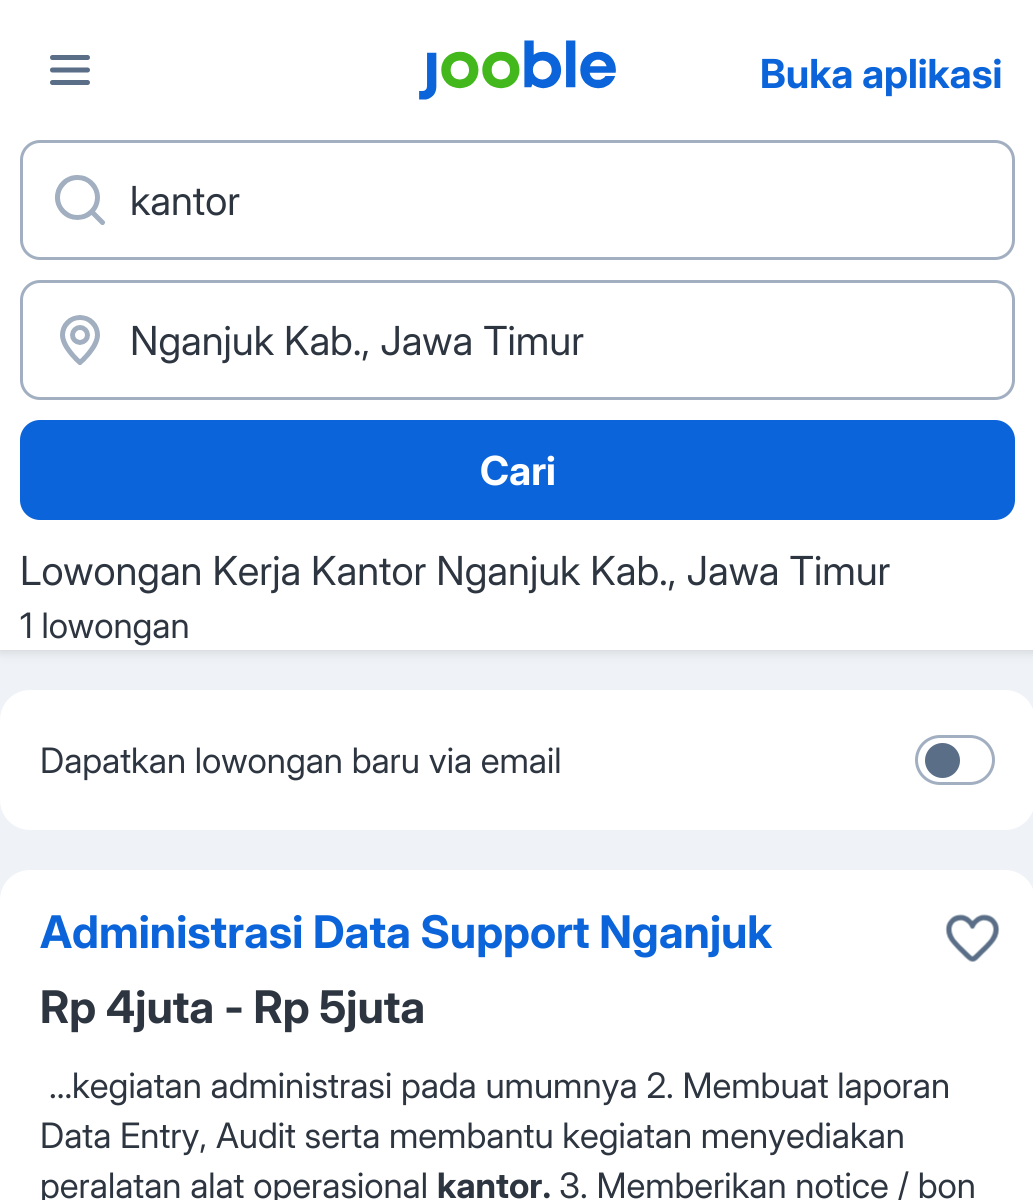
#include <cairo/cairo.h>
#include <math.h>
#include <stddef.h>

typedef struct { double x, y; const char *s; } line_t;
static cairo_t *cr;

static void rgb(unsigned color)
{
	cairo_set_source_rgb(cr, (color >> 16) / 255.0, (color >> 8 & 255) / 255.0, (color & 255) / 255.0);
}

static void rrect(double x, double y, double w, double h, double r)
{
	cairo_new_sub_path(cr);
	cairo_arc(cr, x + w - r, y + h - r, r, 0, M_PI / 2);
	cairo_arc(cr, x + r, y + h - r, r, M_PI / 2, M_PI);
	cairo_arc(cr, x + r, y + r, r, M_PI, 1.5 * M_PI);
	cairo_arc(cr, x + w - r, y + r, r, 1.5 * M_PI, 2 * M_PI);
	cairo_close_path(cr);
}

static void soft_shadow(double x, double y, double w, double h, double r, double blur, double alpha)
{
	cairo_push_group_with_content(cr, CAIRO_CONTENT_ALPHA);
	cairo_set_operator(cr, CAIRO_OPERATOR_SOURCE);
	for (int i = 15; i >= -15 && fmin(w, h) + blur * i / 3 > 0; i -= 2) {
		double e = blur * i / 6;
		cairo_set_source_rgba(cr, 0, 0, 0, alpha * erfc((i - 1) / 8.5) / 2);
		rrect(x - e, y - e, w + 2 * e, h + 2 * e, fmax(0, fmin(r + e + blur * .6, fmin(w, h) / 2 + e)));
		cairo_fill(cr);
	}
	cairo_pattern_t *soft = cairo_pop_group(cr);
	cairo_mask(cr, soft);
	cairo_pattern_destroy(soft);
}

static void image(const char *path, double x, double y, double w, double h)
{
	cairo_surface_t *image = cairo_image_surface_create_from_png(path);
	cairo_save(cr);
	cairo_set_source_surface(cr, image, x, y);
	cairo_rectangle(cr, x, y, w, h);
	cairo_fill(cr);
	cairo_restore(cr);
	cairo_surface_destroy(image);
}

int main(void) {
	cairo_surface_t *surface = cairo_image_surface_create(CAIRO_FORMAT_RGB24, 1033, 1200);
	cr = cairo_create(surface);
	cairo_font_options_t *options = cairo_font_options_create();
	cairo_font_options_set_hint_metrics(options, CAIRO_HINT_METRICS_OFF);
	cairo_font_options_set_hint_style(options, CAIRO_HINT_STYLE_NONE);
	cairo_set_font_options(cr, options);
	cairo_set_miter_limit(cr, 4);
	rgb(0xeff2f6);
	cairo_paint(cr);
	rgb(0x171e26);
	soft_shadow(0, 0, 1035, 650, 0, 7.5, 0.12);
	soft_shadow(0, 0, 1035, 650, 0, 5, 0.08);
	rgb(0xffffff);
	cairo_rectangle(cr, 0, 0, 1033, 650);
	cairo_fill(cr);
	image("img/1.png", 50, 55, 40, 30);
	image("img/2.png", 419, 40, 197, 60);
	rrect(21.5, 141.5, 992, 117, 18.5);
	rgb(0xa1afc1);
	cairo_set_line_width(cr, 3);
	cairo_stroke(cr);
	image("img/3.png", 54, 175, 51, 50);
	rrect(21.5, 281.5, 992, 117, 18.5);
	cairo_stroke(cr);
	image("img/4.png", 60, 315, 40, 50);
	rgb(0x0b64d9);
	rrect(20, 420, 995, 100, 20);
	cairo_fill(cr);
	rgb(0xffffff);
	rrect(0, 690, 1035, 140, 30);
	cairo_fill(cr);
	rrect(916.5, 736.5, 77, 47, 23.5);
	rgb(0xa1afc1);
	cairo_stroke(cr);
	rgb(0x5a6f87);
	cairo_arc(cr, 942.5, 760.5, 17.5, 0, 2 * M_PI);
	cairo_fill(cr);
	rgb(0xffffff);
	rrect(0, 870, 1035, 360, 30);
	cairo_fill(cr);
	image("img/5.png", 945, 914, 55, 48);
	cairo_select_font_face(cr, "Inter Display", CAIRO_FONT_SLANT_NORMAL, CAIRO_FONT_WEIGHT_BOLD);
	cairo_set_font_size(cr, 40);
	rgb(0x0b64d9);
	cairo_move_to(cr, 760, 88);
	cairo_show_text(cr, "Buka aplikasi");
	cairo_select_font_face(cr, "Inter Display", CAIRO_FONT_SLANT_NORMAL, CAIRO_FONT_WEIGHT_NORMAL);
	rgb(0x2d3540);
	cairo_move_to(cr, 130, 215);
	cairo_show_text(cr, "kantor");
	cairo_move_to(cr, 130, 355);
	cairo_show_text(cr, "Nganjuk Kab., Jawa Timur");
	cairo_select_font_face(cr, "Inter Display", CAIRO_FONT_SLANT_NORMAL, CAIRO_FONT_WEIGHT_BOLD);
	rgb(0xffffff);
	cairo_move_to(cr, 480, 485);
	cairo_show_text(cr, "Cari");
	cairo_select_font_face(cr, "Inter Display", CAIRO_FONT_SLANT_NORMAL, CAIRO_FONT_WEIGHT_NORMAL);
	rgb(0x2d3540);
	cairo_move_to(cr, 20, 585);
	cairo_show_text(cr, "Lowongan Kerja Kantor Nganjuk Kab., Jawa Timur");
	cairo_set_font_size(cr, 35);
	cairo_move_to(cr, 20, 638);
	cairo_show_text(cr, "1 lowongan");
	cairo_move_to(cr, 40, 773);
	cairo_show_text(cr, "Dapatkan lowongan baru via email");
	cairo_select_font_face(cr, "Inter Display", CAIRO_FONT_SLANT_NORMAL, CAIRO_FONT_WEIGHT_BOLD);
	cairo_set_font_size(cr, 45);
	rgb(0x0b64d9);
	cairo_move_to(cr, 40, 948);
	cairo_show_text(cr, "Administrasi Data Support Nganjuk");
	rgb(0x2d3540);
	cairo_move_to(cr, 40, 1023);
	cairo_show_text(cr, "Rp 4juta - Rp 5juta");
	cairo_select_font_face(cr, "Inter Display", CAIRO_FONT_SLANT_NORMAL, CAIRO_FONT_WEIGHT_NORMAL);
	cairo_set_font_size(cr, 35);
	{
		static const line_t items[] = {
			{49, 1098, "...kegiatan administrasi pada umumnya 2. Membuat laporan"},
			{40, 1148, "Data Entry, Audit serta membantu kegiatan menyediakan"},
			{40, 1198, "peralatan alat operasional"},
		};
		for (size_t i = 0; i < sizeof items / sizeof *items; i++) {
			cairo_move_to(cr, items[i].x, items[i].y);
			cairo_show_text(cr, items[i].s);
		}
	}
	cairo_select_font_face(cr, "Inter Display", CAIRO_FONT_SLANT_NORMAL, CAIRO_FONT_WEIGHT_BOLD);
	cairo_move_to(cr, 437, 1198);
	cairo_show_text(cr, "kantor.");
	cairo_select_font_face(cr, "Inter Display", CAIRO_FONT_SLANT_NORMAL, CAIRO_FONT_WEIGHT_NORMAL);
	cairo_move_to(cr, 559, 1198);
	cairo_show_text(cr, "3. Memberikan notice / bon");
	cairo_surface_write_to_png(surface, "page.png");
	cairo_font_options_destroy(options);
	cairo_destroy(cr);
	cairo_surface_destroy(surface);
	return 0;
}
